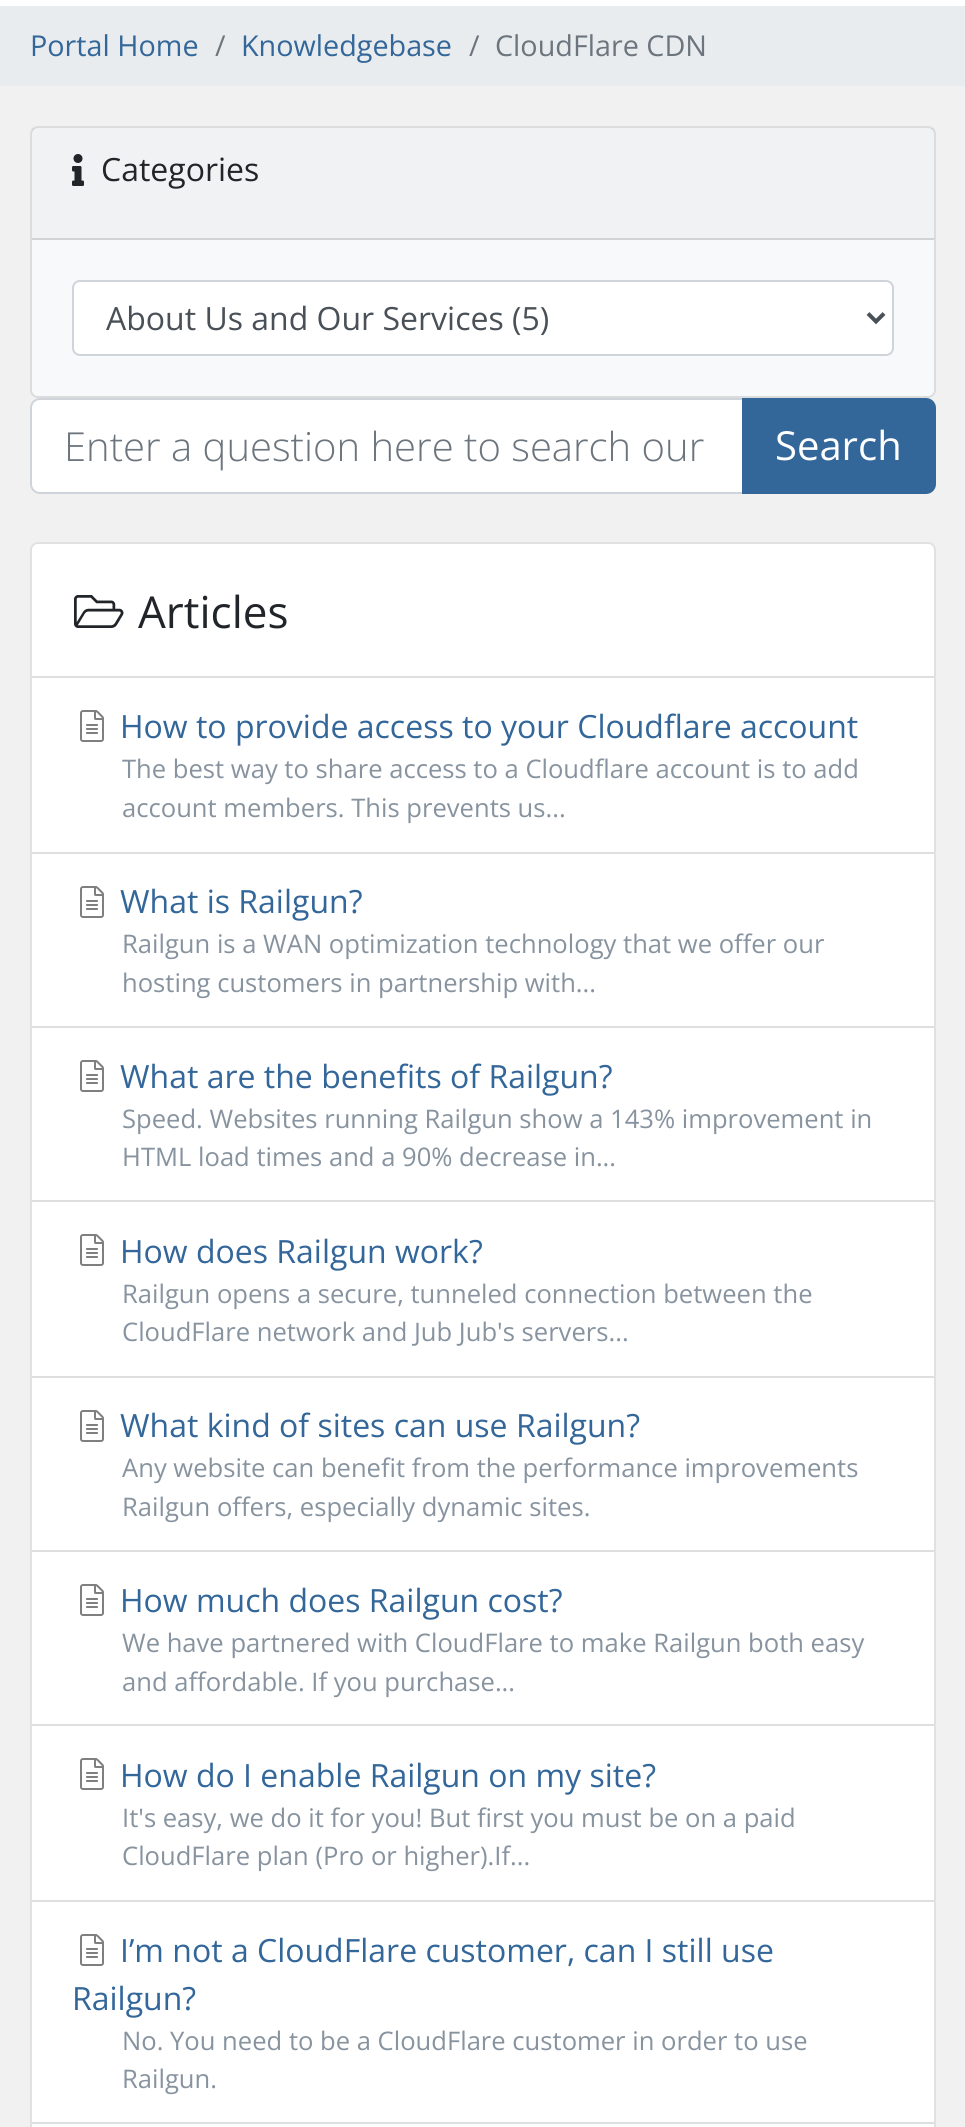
#include <cairo/cairo.h>
#include <math.h>
#include <stddef.h>

static cairo_t *cr;

static void rgb(unsigned color)
{
	cairo_set_source_rgb(cr, (color >> 16) / 255.0, (color >> 8 & 255) / 255.0, (color & 255) / 255.0);
}

static void rrect(double x, double y, double w, double h, double r)
{
	cairo_new_sub_path(cr);
	cairo_arc(cr, x + w - r, y + h - r, r, 0, M_PI / 2);
	cairo_arc(cr, x + r, y + h - r, r, M_PI / 2, M_PI);
	cairo_arc(cr, x + r, y + r, r, M_PI, 1.5 * M_PI);
	cairo_arc(cr, x + w - r, y + r, r, 1.5 * M_PI, 2 * M_PI);
	cairo_close_path(cr);
}

static void image(const char *path, double x, double y, double w, double h)
{
	cairo_surface_t *image = cairo_image_surface_create_from_png(path);
	cairo_save(cr);
	cairo_set_source_surface(cr, image, x, y);
	cairo_rectangle(cr, x, y, w, h);
	cairo_fill(cr);
	cairo_restore(cr);
	cairo_surface_destroy(image);
}

int main(void) {
	cairo_surface_t *surface = cairo_image_surface_create(CAIRO_FORMAT_RGB24, 965, 2127);
	cr = cairo_create(surface);
	cairo_font_options_t *options = cairo_font_options_create();
	cairo_font_options_set_hint_metrics(options, CAIRO_HINT_METRICS_OFF);
	cairo_font_options_set_hint_style(options, CAIRO_HINT_STYLE_NONE);
	cairo_set_font_options(cr, options);
	cairo_set_miter_limit(cr, 4);
	rgb(0xf1f1f1);
	cairo_paint(cr);
	rgb(0xffffff);
	cairo_rectangle(cr, 0, 0, 965, 6);
	cairo_fill(cr);
	rgb(0xe9ecef);
	cairo_rectangle(cr, 0, 6, 965, 80);
	cairo_fill(cr);
	rgb(0xf8f9fa);
	rrect(30, 126, 906, 272, 8);
	cairo_fill(cr);
	rrect(31, 127, 904, 270, 7);
	cairo_set_source_rgba(cr, 0, 0, 0, 0.12);
	cairo_stroke(cr);
	cairo_set_source_rgba(cr, 0, 0, 0, 0.03);
	cairo_rectangle(cr, 32, 128, 902, 110);
	cairo_fill(cr);
	rgb(0xd2d3d4);
	cairo_rectangle(cr, 32, 238, 902, 2);
	cairo_fill(cr);
	image("img/1.png", 72, 154, 12, 32);
	rgb(0xffffff);
	rrect(73, 281, 820, 74, 7);
	cairo_fill_preserve(cr);
	rgb(0xced4da);
	cairo_stroke(cr);
	cairo_new_path(cr);
	cairo_move_to(cr, 868, 313.5);
	cairo_line_to(cr, 876, 321.5);
	cairo_line_to(cr, 884, 313.5);
	rgb(0x495057);
	cairo_set_line_width(cr, 4);
	cairo_stroke(cr);
	rgb(0xffffff);
	cairo_new_path(cr);
	cairo_move_to(cr, 40, 399);
	cairo_line_to(cr, 743, 399);
	cairo_line_to(cr, 743, 493);
	cairo_line_to(cr, 40, 493);
	cairo_curve_to(cr, 35, 493, 31, 489, 31, 484);
	cairo_line_to(cr, 31, 408);
	cairo_curve_to(cr, 31, 403, 35, 399, 40, 399);
	cairo_close_path(cr);
	cairo_fill_preserve(cr);
	rgb(0xced4da);
	cairo_set_line_width(cr, 2);
	cairo_stroke(cr);
	rgb(0x336699);
	cairo_new_path(cr);
	cairo_move_to(cr, 743, 399);
	cairo_line_to(cr, 926, 399);
	cairo_curve_to(cr, 931, 399, 935, 403, 935, 408);
	cairo_line_to(cr, 935, 484);
	cairo_curve_to(cr, 935, 489, 931, 493, 926, 493);
	cairo_line_to(cr, 743, 493);
	cairo_close_path(cr);
	cairo_fill_preserve(cr);
	cairo_stroke(cr);
	rgb(0xffffff);
	rrect(30, 542, 906, 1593, 8);
	cairo_fill(cr);
	rrect(31, 543, 904, 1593, 7);
	cairo_set_source_rgba(cr, 0, 0, 0, 0.12);
	cairo_stroke(cr);
	image("img/2.png", 74, 595, 50, 33);
	rgb(0xdfdfdf);
	cairo_rectangle(cr, 32, 676, 902, 2);
	cairo_fill(cr);
	cairo_rectangle(cr, 32, 852, 902, 2);
	cairo_fill(cr);
	image("img/3.png", 80, 710, 24, 32);
	cairo_rectangle(cr, 32, 1026, 902, 2);
	cairo_fill(cr);
	image("img/3.png", 80, 886, 24, 32);
	cairo_rectangle(cr, 32, 1200, 902, 2);
	cairo_fill(cr);
	image("img/3.png", 80, 1060, 24, 32);
	cairo_rectangle(cr, 32, 1376, 902, 2);
	cairo_fill(cr);
	image("img/3.png", 80, 1234, 24, 32);
	cairo_rectangle(cr, 32, 1550, 902, 2);
	cairo_fill(cr);
	image("img/3.png", 80, 1410, 24, 32);
	cairo_rectangle(cr, 32, 1724, 902, 2);
	cairo_fill(cr);
	image("img/3.png", 80, 1584, 24, 32);
	cairo_rectangle(cr, 32, 1900, 902, 2);
	cairo_fill(cr);
	image("img/3.png", 80, 1758, 24, 32);
	cairo_rectangle(cr, 32, 2122, 902, 2);
	cairo_fill(cr);
	image("img/3.png", 80, 1934, 24, 32);
	cairo_select_font_face(cr, "Open Sans", CAIRO_FONT_SLANT_NORMAL, CAIRO_FONT_WEIGHT_NORMAL);
	cairo_set_font_size(cr, 28.75);
	rgb(0x336699);
	cairo_move_to(cr, 30, 56);
	cairo_show_text(cr, "Portal Home");
	rgb(0x6c757d);
	cairo_move_to(cr, 215, 56);
	cairo_show_text(cr, "/");
	rgb(0x336699);
	cairo_move_to(cr, 241, 56);
	cairo_show_text(cr, "Knowledgebase");
	rgb(0x6c757d);
	cairo_move_to(cr, 469, 56);
	cairo_show_text(cr, "/");
	cairo_move_to(cr, 495, 56);
	cairo_show_text(cr, "CloudFlare CDN");
	cairo_set_font_size(cr, 32);
	rgb(0x212529);
	cairo_move_to(cr, 101, 181);
	cairo_show_text(cr, "Categories");
	rgb(0x495057);
	cairo_move_to(cr, 106, 330);
	cairo_show_text(cr, "About Us and Our Services (5)");
	cairo_select_font_face(cr, "Open Sans Light", CAIRO_FONT_SLANT_NORMAL, CAIRO_FONT_WEIGHT_NORMAL);
	cairo_set_font_size(cr, 40);
	rgb(0x6c757d);
	cairo_move_to(cr, 64, 461);
	cairo_show_text(cr, "Enter a question here to search our");
	cairo_select_font_face(cr, "Open Sans", CAIRO_FONT_SLANT_NORMAL, CAIRO_FONT_WEIGHT_NORMAL);
	rgb(0xffffff);
	cairo_move_to(cr, 775, 460);
	cairo_show_text(cr, "Search");
	cairo_set_font_size(cr, 44);
	rgb(0x212529);
	cairo_move_to(cr, 138, 628);
	cairo_show_text(cr, "Articles");
	cairo_set_font_size(cr, 32);
	rgb(0x336699);
	cairo_move_to(cr, 120, 738);
	cairo_show_text(cr, "How to provide access to your Cloudflare account");
	cairo_set_font_size(cr, 25.6);
	rgb(0x87939f);
	cairo_move_to(cr, 122, 778);
	cairo_show_text(cr, "The best way to share access to a Cloudflare account is to add");
	cairo_move_to(cr, 122, 817);
	cairo_show_text(cr, "account members. This prevents us...");
	cairo_set_font_size(cr, 32);
	rgb(0x336699);
	cairo_move_to(cr, 120, 913);
	cairo_show_text(cr, "What is Railgun?");
	cairo_set_font_size(cr, 25.6);
	rgb(0x87939f);
	cairo_move_to(cr, 122, 953);
	cairo_show_text(cr, "Railgun is a WAN optimization technology that we offer our");
	cairo_move_to(cr, 122, 992);
	cairo_show_text(cr, "hosting customers in partnership with...");
	cairo_set_font_size(cr, 32);
	rgb(0x336699);
	cairo_move_to(cr, 120, 1088);
	cairo_show_text(cr, "What are the benefits of Railgun?");
	cairo_set_font_size(cr, 25.6);
	rgb(0x87939f);
	cairo_move_to(cr, 122, 1128);
	cairo_show_text(cr, "Speed. Websites running Railgun show a 143% improvement in");
	cairo_move_to(cr, 122, 1166);
	cairo_show_text(cr, "HTML load times and a 90% decrease in...");
	cairo_set_font_size(cr, 32);
	rgb(0x336699);
	cairo_move_to(cr, 120, 1263);
	cairo_show_text(cr, "How does Railgun work?");
	cairo_set_font_size(cr, 25.6);
	rgb(0x87939f);
	cairo_move_to(cr, 122, 1303);
	cairo_show_text(cr, "Railgun opens a secure, tunneled connection between the");
	cairo_move_to(cr, 122, 1341);
	cairo_show_text(cr, "CloudFlare network and Jub Jub's servers...");
	cairo_set_font_size(cr, 32);
	rgb(0x336699);
	cairo_move_to(cr, 120, 1437);
	cairo_show_text(cr, "What kind of sites can use Railgun?");
	cairo_set_font_size(cr, 25.6);
	rgb(0x87939f);
	cairo_move_to(cr, 122, 1477);
	cairo_show_text(cr, "Any website can benefit from the performance improvements");
	cairo_move_to(cr, 122, 1516);
	cairo_show_text(cr, "Railgun offers, especially dynamic sites.");
	cairo_set_font_size(cr, 32);
	rgb(0x336699);
	cairo_move_to(cr, 120, 1612);
	cairo_show_text(cr, "How much does Railgun cost?");
	cairo_set_font_size(cr, 25.6);
	rgb(0x87939f);
	cairo_move_to(cr, 122, 1652);
	cairo_show_text(cr, "We have partnered with CloudFlare to make Railgun both easy");
	cairo_move_to(cr, 122, 1691);
	cairo_show_text(cr, "and affordable. If you purchase...");
	cairo_set_font_size(cr, 32);
	rgb(0x336699);
	cairo_move_to(cr, 120, 1787);
	cairo_show_text(cr, "How do I enable Railgun on my site?");
	cairo_set_font_size(cr, 25.6);
	rgb(0x87939f);
	cairo_move_to(cr, 122, 1827);
	cairo_show_text(cr, "It's easy, we do it for you! But first you must be on a paid");
	cairo_move_to(cr, 122, 1865);
	cairo_show_text(cr, "CloudFlare plan (Pro or higher).If...");
	cairo_set_font_size(cr, 32);
	rgb(0x336699);
	cairo_move_to(cr, 120, 1962);
	cairo_show_text(cr, "I’m not a CloudFlare customer, can I still use");
	cairo_move_to(cr, 72, 2010);
	cairo_show_text(cr, "Railgun?");
	cairo_set_font_size(cr, 25.6);
	rgb(0x87939f);
	cairo_move_to(cr, 122, 2050);
	cairo_show_text(cr, "No. You need to be a CloudFlare customer in order to use");
	cairo_move_to(cr, 122, 2088);
	cairo_show_text(cr, "Railgun.");
	cairo_surface_write_to_png(surface, "page.png");
	cairo_font_options_destroy(options);
	cairo_destroy(cr);
	cairo_surface_destroy(surface);
	return 0;
}
